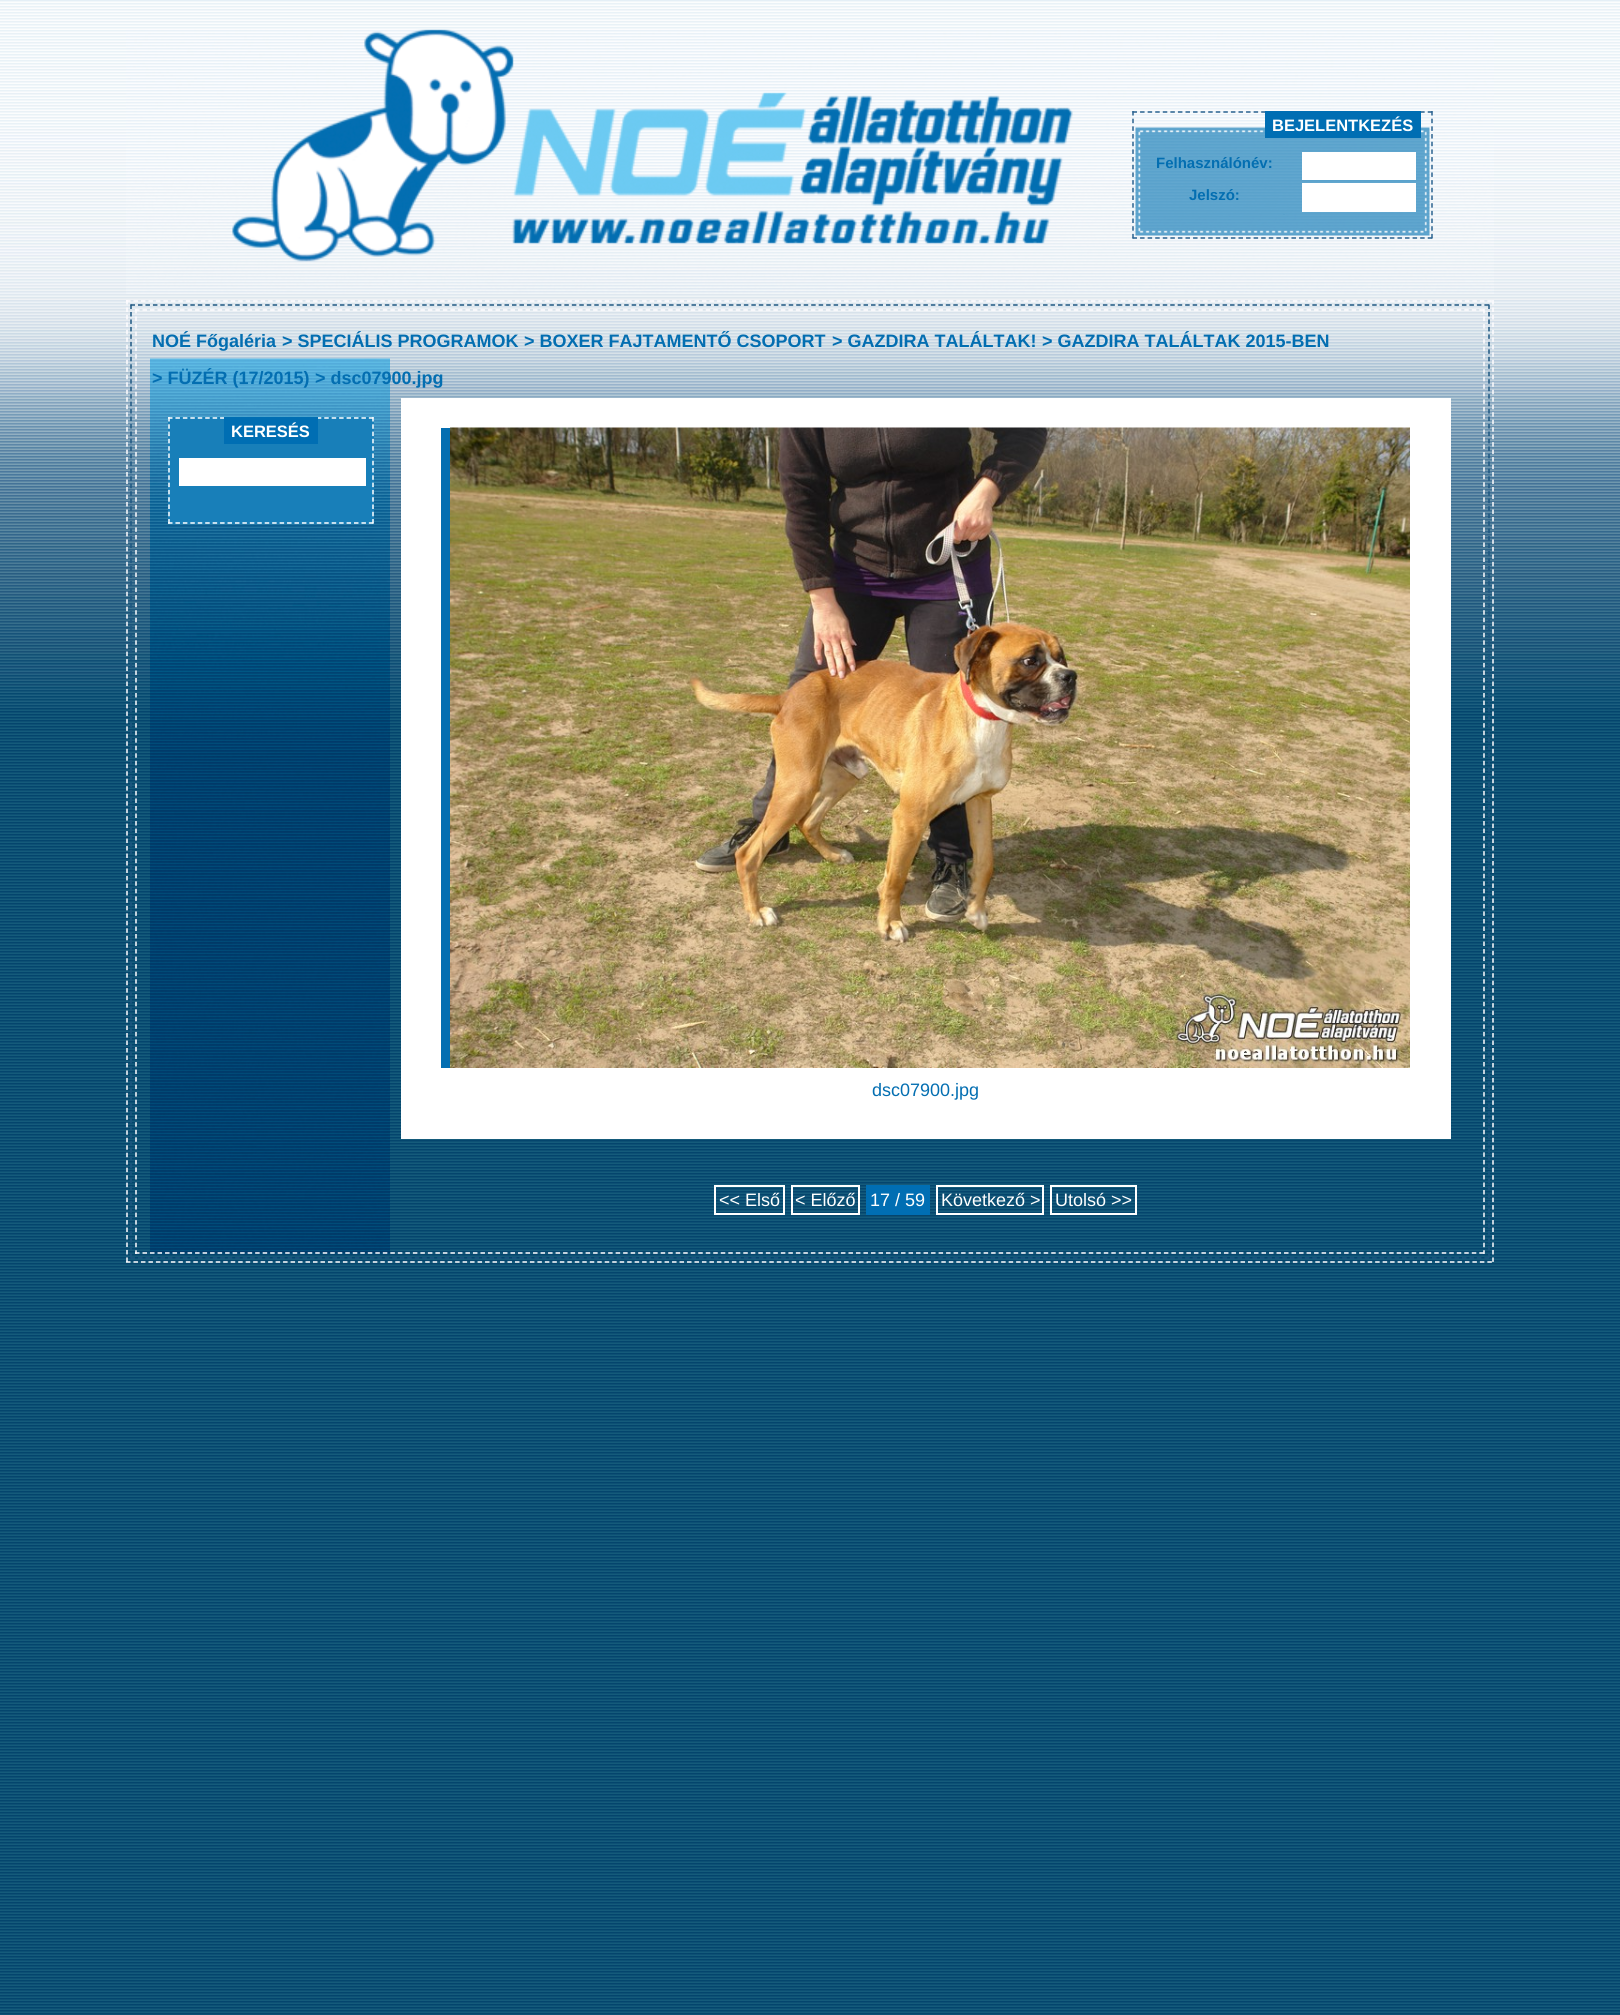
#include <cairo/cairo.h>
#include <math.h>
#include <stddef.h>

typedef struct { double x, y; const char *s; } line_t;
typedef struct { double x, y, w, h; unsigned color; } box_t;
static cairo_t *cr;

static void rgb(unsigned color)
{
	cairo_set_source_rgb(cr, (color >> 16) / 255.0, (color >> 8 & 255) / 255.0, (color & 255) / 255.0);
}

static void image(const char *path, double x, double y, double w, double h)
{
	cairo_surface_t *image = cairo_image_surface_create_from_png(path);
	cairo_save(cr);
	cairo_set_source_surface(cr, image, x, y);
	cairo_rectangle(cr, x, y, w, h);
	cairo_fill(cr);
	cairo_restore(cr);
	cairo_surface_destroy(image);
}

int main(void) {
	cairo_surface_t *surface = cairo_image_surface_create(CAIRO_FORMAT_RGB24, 1620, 2015);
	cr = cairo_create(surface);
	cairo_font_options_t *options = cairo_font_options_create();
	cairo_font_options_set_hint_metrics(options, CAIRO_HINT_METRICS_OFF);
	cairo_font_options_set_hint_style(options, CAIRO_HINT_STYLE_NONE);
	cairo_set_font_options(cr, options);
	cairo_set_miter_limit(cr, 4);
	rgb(0xffffff);
	cairo_paint(cr);
	image("img/1.png", 0, 708, 1620, 1307);
	image("img/2.png", 0, 0, 1620, 708);
	image("img/3.png", 126, 29, 1368, 265);
	image("img/4.png", 1135, 127, 295, 109);
	cairo_new_path(cr);
	cairo_move_to(cr, 1132.5, 112);
	cairo_line_to(cr, 1432.5, 112);
	rgb(0x2b628f);
	cairo_set_line_width(cr, 1.5);
	cairo_set_dash(cr, (double[]){4.5, 3.07}, 2, 0);
	cairo_stroke(cr);
	cairo_new_path(cr);
	cairo_move_to(cr, 1432, 111);
	cairo_line_to(cr, 1432, 238.5);
	cairo_set_dash(cr, (double[]){4.5, 3.18}, 2, 0);
	cairo_stroke(cr);
	cairo_new_path(cr);
	cairo_move_to(cr, 1132.5, 238);
	cairo_line_to(cr, 1432.5, 238);
	cairo_set_dash(cr, (double[]){4.5, 3.07}, 2, 0);
	cairo_stroke(cr);
	cairo_new_path(cr);
	cairo_move_to(cr, 1133, 111);
	cairo_line_to(cr, 1133, 238.5);
	cairo_set_dash(cr, (double[]){4.5, 3.18}, 2, 0);
	cairo_stroke(cr);
	{
		static const box_t items[] = {
			{1265, 111, 156, 27, 0x006eb3},
			{1302, 152, 114, 28, 0xffffff},
			{1302, 183, 114, 29, 0xffffff},
			{1283, 214, 2, 1, 0x59a1cb},
		};
		for (size_t i = 0; i < sizeof items / sizeof *items; i++) {
			rgb(items[i].color);
			cairo_rectangle(cr, items[i].x, items[i].y, items[i].w, items[i].h);
			cairo_fill(cr);
		}
	}
	cairo_new_path(cr);
	cairo_move_to(cr, 126, 301);
	cairo_line_to(cr, 1494, 301);
	rgb(0xfffdff);
	cairo_set_dash(cr, (double[]){4.5, 2.98}, 2, 0);
	cairo_stroke(cr);
	cairo_new_path(cr);
	cairo_move_to(cr, 1493, 300);
	cairo_line_to(cr, 1493, 1263);
	cairo_stroke(cr);
	cairo_new_path(cr);
	cairo_move_to(cr, 126, 1262);
	cairo_line_to(cr, 1494, 1262);
	cairo_stroke(cr);
	cairo_new_path(cr);
	cairo_move_to(cr, 127, 300);
	cairo_line_to(cr, 127, 1263);
	cairo_stroke(cr);
	cairo_new_path(cr);
	cairo_move_to(cr, 130.5, 305);
	cairo_line_to(cr, 1489.5, 305);
	rgb(0x1d5681);
	cairo_stroke(cr);
	cairo_new_path(cr);
	cairo_move_to(cr, 1489, 304.5);
	cairo_line_to(cr, 1489, 1258.5);
	cairo_set_dash(cr, (double[]){4.5, 2.97}, 2, 0);
	cairo_stroke(cr);
	cairo_new_path(cr);
	cairo_move_to(cr, 130.5, 1258);
	cairo_line_to(cr, 1489.5, 1258);
	cairo_set_dash(cr, (double[]){4.5, 2.98}, 2, 0);
	cairo_stroke(cr);
	cairo_new_path(cr);
	cairo_move_to(cr, 131, 304.5);
	cairo_line_to(cr, 131, 1258.5);
	cairo_set_dash(cr, (double[]){4.5, 2.97}, 2, 0);
	cairo_stroke(cr);
	image("img/5.png", 150, 358, 240, 896);
	cairo_new_path(cr);
	cairo_move_to(cr, 135, 310);
	cairo_line_to(cr, 1485, 310);
	rgb(0xfffdff);
	cairo_set_dash(cr, (double[]){4.5, 3.01}, 2, 0);
	cairo_stroke(cr);
	cairo_new_path(cr);
	cairo_move_to(cr, 1484, 309);
	cairo_line_to(cr, 1484, 1254);
	cairo_set_dash(cr, (double[]){4.5, 3.03}, 2, 0);
	cairo_stroke(cr);
	cairo_new_path(cr);
	cairo_move_to(cr, 135, 1253);
	cairo_line_to(cr, 1485, 1253);
	cairo_set_dash(cr, (double[]){4.5, 3.01}, 2, 0);
	cairo_stroke(cr);
	cairo_new_path(cr);
	cairo_move_to(cr, 136, 309);
	cairo_line_to(cr, 136, 1254);
	cairo_set_dash(cr, (double[]){4.5, 3.03}, 2, 0);
	cairo_stroke(cr);
	rgb(0x187fb9);
	cairo_rectangle(cr, 168, 417, 206, 107);
	cairo_fill(cr);
	cairo_new_path(cr);
	cairo_move_to(cr, 168, 418);
	cairo_line_to(cr, 373.5, 418);
	rgb(0xffffff);
	cairo_set_dash(cr, (double[]){4.5, 2.94}, 2, 0);
	cairo_stroke(cr);
	cairo_new_path(cr);
	cairo_move_to(cr, 373, 417);
	cairo_line_to(cr, 373, 523.5);
	cairo_set_dash(cr, (double[]){4.5, 2.79}, 2, 0);
	cairo_stroke(cr);
	cairo_new_path(cr);
	cairo_move_to(cr, 168, 523);
	cairo_line_to(cr, 373.5, 523);
	cairo_set_dash(cr, (double[]){4.5, 2.94}, 2, 0);
	cairo_stroke(cr);
	cairo_new_path(cr);
	cairo_move_to(cr, 169, 417);
	cairo_line_to(cr, 169, 523.5);
	cairo_set_dash(cr, (double[]){4.5, 2.79}, 2, 0);
	cairo_stroke(cr);
	{
		static const box_t items[] = {
			{224, 417, 94, 27, 0x006eb3},
			{179, 458, 187, 28, 0xffffff},
			{401, 398, 1050, 741, 0xffffff},
			{441, 428, 9, 640, 0x046eb1},
		};
		for (size_t i = 0; i < sizeof items / sizeof *items; i++) {
			rgb(items[i].color);
			cairo_rectangle(cr, items[i].x, items[i].y, items[i].w, items[i].h);
			cairo_fill(cr);
		}
	}
	image("img/6.png", 450, 427, 960, 641);
	cairo_rectangle(cr, 715, 1186, 69, 28);
	rgb(0xffffff);
	cairo_set_line_width(cr, 2);
	cairo_set_dash(cr, NULL, 0, 0);
	cairo_stroke(cr);
	cairo_rectangle(cr, 792, 1186, 67, 28);
	cairo_stroke(cr);
	rgb(0x006eb3);
	cairo_rectangle(cr, 866, 1185, 64, 30);
	cairo_fill(cr);
	cairo_rectangle(cr, 937, 1186, 106, 28);
	rgb(0xffffff);
	cairo_stroke(cr);
	cairo_rectangle(cr, 1051, 1186, 85, 28);
	cairo_stroke(cr);
	cairo_select_font_face(cr, "Liberation Sans", CAIRO_FONT_SLANT_NORMAL, CAIRO_FONT_WEIGHT_BOLD);
	cairo_set_font_size(cr, 16.5);
	cairo_move_to(cr, 1272, 131);
	cairo_show_text(cr, "BEJELENTKEZÉS");
	cairo_set_font_size(cr, 15);
	rgb(0x036eb1);
	cairo_move_to(cr, 1156, 168);
	cairo_show_text(cr, "Felhasználónév:");
	cairo_move_to(cr, 1189, 200);
	cairo_show_text(cr, "Jelszó:");
	cairo_set_font_size(cr, 18);
	{
		static const line_t items[] = {
			{152, 347, "NOÉ Főgaléria"},
			{282, 347, "> SPECIÁLIS PROGRAMOK"},
			{524, 347, "> BOXER FAJTAMENTŐ CSOPORT"},
			{832, 347, "> GAZDIRA TALÁLTAK!"},
			{1042, 347, "> GAZDIRA TALÁLTAK 2015-BEN"},
			{152, 384, "> FÜZÉR (17/2015)"},
			{315, 384, "> dsc07900.jpg"},
		};
		for (size_t i = 0; i < sizeof items / sizeof *items; i++) {
			cairo_move_to(cr, items[i].x, items[i].y);
			cairo_show_text(cr, items[i].s);
		}
	}
	cairo_set_font_size(cr, 16.5);
	rgb(0xffffff);
	cairo_move_to(cr, 231, 437);
	cairo_show_text(cr, "KERESÉS");
	cairo_select_font_face(cr, "Liberation Sans", CAIRO_FONT_SLANT_NORMAL, CAIRO_FONT_WEIGHT_NORMAL);
	cairo_set_font_size(cr, 18);
	rgb(0x036eb1);
	cairo_move_to(cr, 872, 1096);
	cairo_show_text(cr, "dsc07900.jpg");
	rgb(0xffffff);
	{
		static const line_t items[] = {
			{719, 1206, "<< Első"},
			{795, 1206, "< Előző"},
			{870, 1206, "17 / 59"},
			{941, 1206, "Következő >"},
			{1055, 1206, "Utolsó >>"},
		};
		for (size_t i = 0; i < sizeof items / sizeof *items; i++) {
			cairo_move_to(cr, items[i].x, items[i].y);
			cairo_show_text(cr, items[i].s);
		}
	}
	cairo_surface_write_to_png(surface, "page.png");
	cairo_font_options_destroy(options);
	cairo_destroy(cr);
	cairo_surface_destroy(surface);
	return 0;
}
